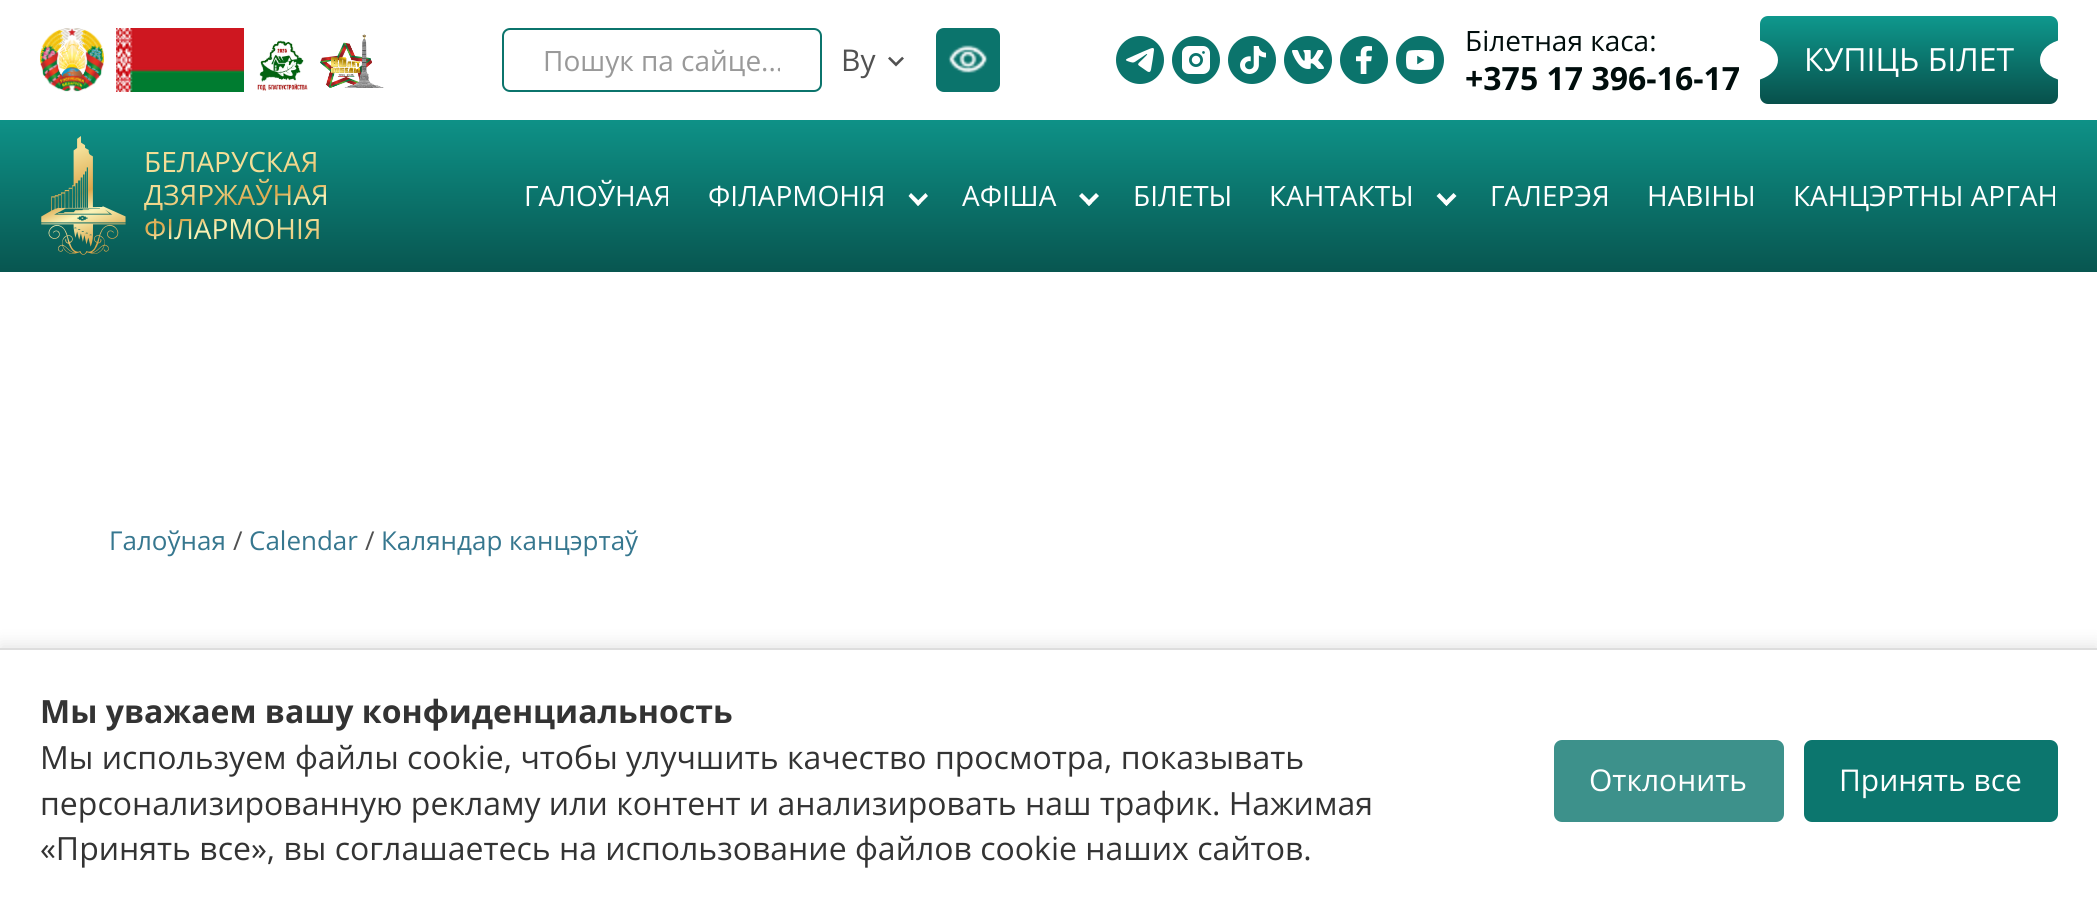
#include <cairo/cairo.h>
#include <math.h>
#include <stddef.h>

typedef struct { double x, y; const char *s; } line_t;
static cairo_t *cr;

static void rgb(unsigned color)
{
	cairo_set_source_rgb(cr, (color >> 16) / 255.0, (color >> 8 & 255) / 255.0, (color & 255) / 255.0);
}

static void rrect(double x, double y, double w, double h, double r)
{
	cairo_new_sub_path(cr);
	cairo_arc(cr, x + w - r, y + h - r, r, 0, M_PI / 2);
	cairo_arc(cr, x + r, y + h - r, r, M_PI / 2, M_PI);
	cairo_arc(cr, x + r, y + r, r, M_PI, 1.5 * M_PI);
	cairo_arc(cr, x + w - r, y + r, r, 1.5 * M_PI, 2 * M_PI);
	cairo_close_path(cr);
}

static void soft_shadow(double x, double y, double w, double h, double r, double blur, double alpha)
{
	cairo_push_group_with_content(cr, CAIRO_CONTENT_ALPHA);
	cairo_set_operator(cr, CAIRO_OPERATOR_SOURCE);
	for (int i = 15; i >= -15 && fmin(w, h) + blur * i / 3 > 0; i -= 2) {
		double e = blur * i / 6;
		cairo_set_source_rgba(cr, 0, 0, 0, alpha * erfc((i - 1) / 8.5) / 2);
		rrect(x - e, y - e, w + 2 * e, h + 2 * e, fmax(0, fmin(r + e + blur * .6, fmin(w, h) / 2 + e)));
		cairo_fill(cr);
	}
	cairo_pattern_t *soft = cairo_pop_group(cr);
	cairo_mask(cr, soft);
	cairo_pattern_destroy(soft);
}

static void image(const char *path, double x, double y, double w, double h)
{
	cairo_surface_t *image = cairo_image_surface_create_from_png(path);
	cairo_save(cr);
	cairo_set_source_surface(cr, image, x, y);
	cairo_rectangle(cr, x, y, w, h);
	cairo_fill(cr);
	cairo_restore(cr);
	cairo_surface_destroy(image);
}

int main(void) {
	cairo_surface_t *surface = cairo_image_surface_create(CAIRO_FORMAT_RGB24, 2097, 912);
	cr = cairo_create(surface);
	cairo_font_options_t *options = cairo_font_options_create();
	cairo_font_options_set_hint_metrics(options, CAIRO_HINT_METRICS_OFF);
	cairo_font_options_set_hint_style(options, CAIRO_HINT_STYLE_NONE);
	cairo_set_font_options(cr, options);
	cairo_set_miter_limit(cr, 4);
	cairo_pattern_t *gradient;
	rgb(0xffffff);
	cairo_paint(cr);
	image("img/1.png", 40, 28, 64, 64);
	image("img/2.png", 116, 28, 128, 64);
	image("img/3.png", 257, 40, 51, 51);
	image("img/4.png", 320, 34, 64, 54);
	rrect(503, 29, 318, 62, 7);
	rgb(0x0b746c);
	cairo_stroke(cr);
	image("img/5.png", 888, 56, 16, 11);
	rrect(936, 28, 64, 64, 8);
	cairo_fill(cr);
	image("img/6.png", 948, 45, 40, 28);
	cairo_arc(cr, 1140, 60, 24, 0, 2 * M_PI);
	cairo_fill(cr);
	image("img/7.png", 1126, 48, 28, 24);
	cairo_arc(cr, 1196, 60, 24, 0, 2 * M_PI);
	cairo_fill(cr);
	image("img/8.png", 1182, 46, 28, 28);
	cairo_arc(cr, 1252, 60, 24, 0, 2 * M_PI);
	cairo_fill(cr);
	image("img/9.png", 1240, 46, 26, 28);
	cairo_arc(cr, 1308, 60, 24, 0, 2 * M_PI);
	cairo_fill(cr);
	image("img/10.png", 1292, 50, 32, 19);
	cairo_arc(cr, 1364, 60, 24, 0, 2 * M_PI);
	cairo_fill(cr);
	image("img/11.png", 1356, 46, 16, 28);
	cairo_arc(cr, 1420, 60, 24, 0, 2 * M_PI);
	cairo_fill(cr);
	image("img/12.png", 1406, 50, 28, 20);
	gradient = cairo_pattern_create_linear(1909, 16, 1909, 104);
	cairo_pattern_add_color_stop_rgba(gradient, 0, 0.055, 0.596, 0.553, 1);
	cairo_pattern_add_color_stop_rgba(gradient, 1, 0.031, 0.314, 0.294, 1);
	cairo_set_source(cr, gradient);
	cairo_pattern_destroy(gradient);
	rrect(1760, 16, 298, 88, 8);
	cairo_fill(cr);
	rgb(0xffffff);
	cairo_new_path(cr);
	cairo_move_to(cr, 1760, 79.5);
	cairo_line_to(cr, 1760, 40.5);
	cairo_curve_to(cr, 1784, 48.5, 1784, 71.5, 1760, 79.5);
	cairo_close_path(cr);
	cairo_fill(cr);
	cairo_new_path(cr);
	cairo_move_to(cr, 2058, 40.5);
	cairo_line_to(cr, 2058, 79.5);
	cairo_curve_to(cr, 2034, 71.5, 2034, 48.5, 2058, 40.5);
	cairo_close_path(cr);
	cairo_fill(cr);
	gradient = cairo_pattern_create_linear(1049, 120, 1049, 272);
	cairo_pattern_add_color_stop_rgba(gradient, 0, 0.055, 0.569, 0.529, 1);
	cairo_pattern_add_color_stop_rgba(gradient, 1, 0.031, 0.337, 0.314, 1);
	cairo_set_source(cr, gradient);
	cairo_pattern_destroy(gradient);
	cairo_rectangle(cr, 0, 120, 2097, 152);
	cairo_fill(cr);
	image("img/13.png", 41, 136, 85, 119);
	rgb(0xffffff);
	cairo_new_path(cr);
	cairo_move_to(cr, 925.5, 193);
	cairo_line_to(cr, 928, 196);
	cairo_line_to(cr, 918, 206);
	cairo_line_to(cr, 915.5, 203);
	cairo_close_path(cr);
	cairo_fill(cr);
	cairo_new_path(cr);
	cairo_move_to(cr, 911, 193);
	cairo_line_to(cr, 921, 203);
	cairo_line_to(cr, 918, 206);
	cairo_line_to(cr, 908.5, 196);
	cairo_close_path(cr);
	cairo_fill(cr);
	cairo_new_path(cr);
	cairo_move_to(cr, 1096, 193);
	cairo_line_to(cr, 1099, 196);
	cairo_line_to(cr, 1089, 206);
	cairo_line_to(cr, 1086, 203);
	cairo_close_path(cr);
	cairo_fill(cr);
	cairo_new_path(cr);
	cairo_move_to(cr, 1082, 193);
	cairo_line_to(cr, 1092, 203);
	cairo_line_to(cr, 1089, 206);
	cairo_line_to(cr, 1079, 196);
	cairo_close_path(cr);
	cairo_fill(cr);
	cairo_new_path(cr);
	cairo_move_to(cr, 1453.5, 193);
	cairo_line_to(cr, 1456.5, 196);
	cairo_line_to(cr, 1446.5, 206);
	cairo_line_to(cr, 1443.5, 203);
	cairo_close_path(cr);
	cairo_fill(cr);
	cairo_new_path(cr);
	cairo_move_to(cr, 1439.5, 193);
	cairo_line_to(cr, 1449, 203);
	cairo_line_to(cr, 1446.5, 206);
	cairo_line_to(cr, 1436.5, 196);
	cairo_close_path(cr);
	cairo_fill(cr);
	rgb(0x000000);
	soft_shadow(0, 644, 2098, 264, 0, 8, 0.1);
	rgb(0xffffff);
	cairo_rectangle(cr, 0, 650, 2097, 262);
	cairo_fill(cr);
	rgb(0xdddddd);
	cairo_rectangle(cr, 0, 648, 2097, 2);
	cairo_fill(cr);
	rgb(0x3d918b);
	rrect(1554, 740, 230, 82, 8);
	cairo_fill(cr);
	rgb(0x0c766e);
	rrect(1804, 740, 254, 82, 8);
	cairo_fill(cr);
	cairo_save(cr);
	cairo_rectangle(cr, 544, 42, 236, 38);
	cairo_clip(cr);
	cairo_select_font_face(cr, "Open Sans", CAIRO_FONT_SLANT_NORMAL, CAIRO_FONT_WEIGHT_NORMAL);
	cairo_set_font_size(cr, 28);
	rgb(0x999999);
	cairo_move_to(cr, 543, 71);
	cairo_show_text(cr, "Пошук па сайце...");
	cairo_restore(cr);
	cairo_select_font_face(cr, "Open Sans", CAIRO_FONT_SLANT_NORMAL, CAIRO_FONT_WEIGHT_NORMAL);
	cairo_set_font_size(cr, 30);
	rgb(0x515151);
	cairo_move_to(cr, 841, 71);
	cairo_show_text(cr, "By");
	cairo_set_font_size(cr, 28);
	rgb(0x000d0c);
	cairo_move_to(cr, 1465, 51);
	cairo_show_text(cr, "Білетная каса:");
	cairo_select_font_face(cr, "Open Sans", CAIRO_FONT_SLANT_NORMAL, CAIRO_FONT_WEIGHT_BOLD);
	cairo_set_font_size(cr, 32);
	cairo_move_to(cr, 1465, 90);
	cairo_show_text(cr, "+375 17 396-16-17");
	cairo_select_font_face(cr, "Open Sans", CAIRO_FONT_SLANT_NORMAL, CAIRO_FONT_WEIGHT_NORMAL);
	rgb(0xffffff);
	cairo_move_to(cr, 1804, 71);
	cairo_show_text(cr, "КУПІЦЬ БІЛЕТ");
	cairo_set_font_size(cr, 28);
	gradient = cairo_pattern_create_linear(257, 114, 303, 278);
	cairo_pattern_add_color_stop_rgba(gradient, 0.32, 0.957, 0.871, 0.588, 1);
	cairo_pattern_add_color_stop_rgba(gradient, 0.48, 0.859, 0.655, 0.294, 1);
	cairo_pattern_add_color_stop_rgba(gradient, 0.57, 0.98, 0.957, 0.725, 1);
	cairo_pattern_add_color_stop_rgba(gradient, 0.93, 0.859, 0.655, 0.294, 1);
	cairo_set_source(cr, gradient);
	cairo_pattern_destroy(gradient);
	{
		static const line_t items[] = {
			{144, 172, "БЕЛАРУСКАЯ"},
			{144, 205, "ДЗЯРЖАЎНАЯ"},
			{144, 239, "ФІЛАРМОНІЯ"},
		};
		for (size_t i = 0; i < sizeof items / sizeof *items; i++) {
			cairo_move_to(cr, items[i].x, items[i].y);
			cairo_show_text(cr, items[i].s);
		}
	}
	rgb(0xffffff);
	{
		static const line_t items[] = {
			{524, 206, "ГАЛОЎНАЯ"},
			{708, 206, "ФІЛАРМОНІЯ"},
			{962, 206, "АФIША"},
			{1133, 206, "БІЛЕТЫ"},
			{1269, 206, "КАНТАКТЫ"},
			{1490, 206, "ГАЛЕРЭЯ"},
			{1647, 206, "НАВІНЫ"},
			{1793, 206, "КАНЦЭРТНЫ АРГАН"},
		};
		for (size_t i = 0; i < sizeof items / sizeof *items; i++) {
			cairo_move_to(cr, items[i].x, items[i].y);
			cairo_show_text(cr, items[i].s);
		}
	}
	cairo_set_font_size(cr, 26);
	rgb(0x36778f);
	cairo_move_to(cr, 109, 550);
	cairo_show_text(cr, "Галоўная");
	rgb(0x515151);
	cairo_move_to(cr, 233, 550);
	cairo_show_text(cr, "/");
	rgb(0x36778f);
	cairo_move_to(cr, 249, 550);
	cairo_show_text(cr, "Calendar");
	rgb(0x515151);
	cairo_move_to(cr, 365, 550);
	cairo_show_text(cr, "/");
	rgb(0x36778f);
	cairo_move_to(cr, 381, 550);
	cairo_show_text(cr, "Каляндар канцэртаў");
	cairo_select_font_face(cr, "Open Sans", CAIRO_FONT_SLANT_NORMAL, CAIRO_FONT_WEIGHT_BOLD);
	cairo_set_font_size(cr, 32);
	rgb(0x333333);
	cairo_move_to(cr, 40, 723);
	cairo_show_text(cr, "Мы уважаем вашу конфиденциальность");
	cairo_select_font_face(cr, "Open Sans", CAIRO_FONT_SLANT_NORMAL, CAIRO_FONT_WEIGHT_NORMAL);
	{
		static const line_t items[] = {
			{40, 769, "Мы используем файлы cookie, чтобы улучшить качество просмотра, показывать"},
			{40, 815, "персонализированную рекламу или контент и анализировать наш трафик. Нажимая"},
			{40, 860, "«Принять все», вы соглашаетесь на использование файлов cookie наших сайтов."},
		};
		for (size_t i = 0; i < sizeof items / sizeof *items; i++) {
			cairo_move_to(cr, items[i].x, items[i].y);
			cairo_show_text(cr, items[i].s);
		}
	}
	cairo_set_font_size(cr, 30);
	rgb(0xffffff);
	cairo_move_to(cr, 1589, 791);
	cairo_show_text(cr, "Отклонить");
	cairo_move_to(cr, 1839, 791);
	cairo_show_text(cr, "Принять все");
	cairo_surface_write_to_png(surface, "page.png");
	cairo_font_options_destroy(options);
	cairo_destroy(cr);
	cairo_surface_destroy(surface);
	return 0;
}
